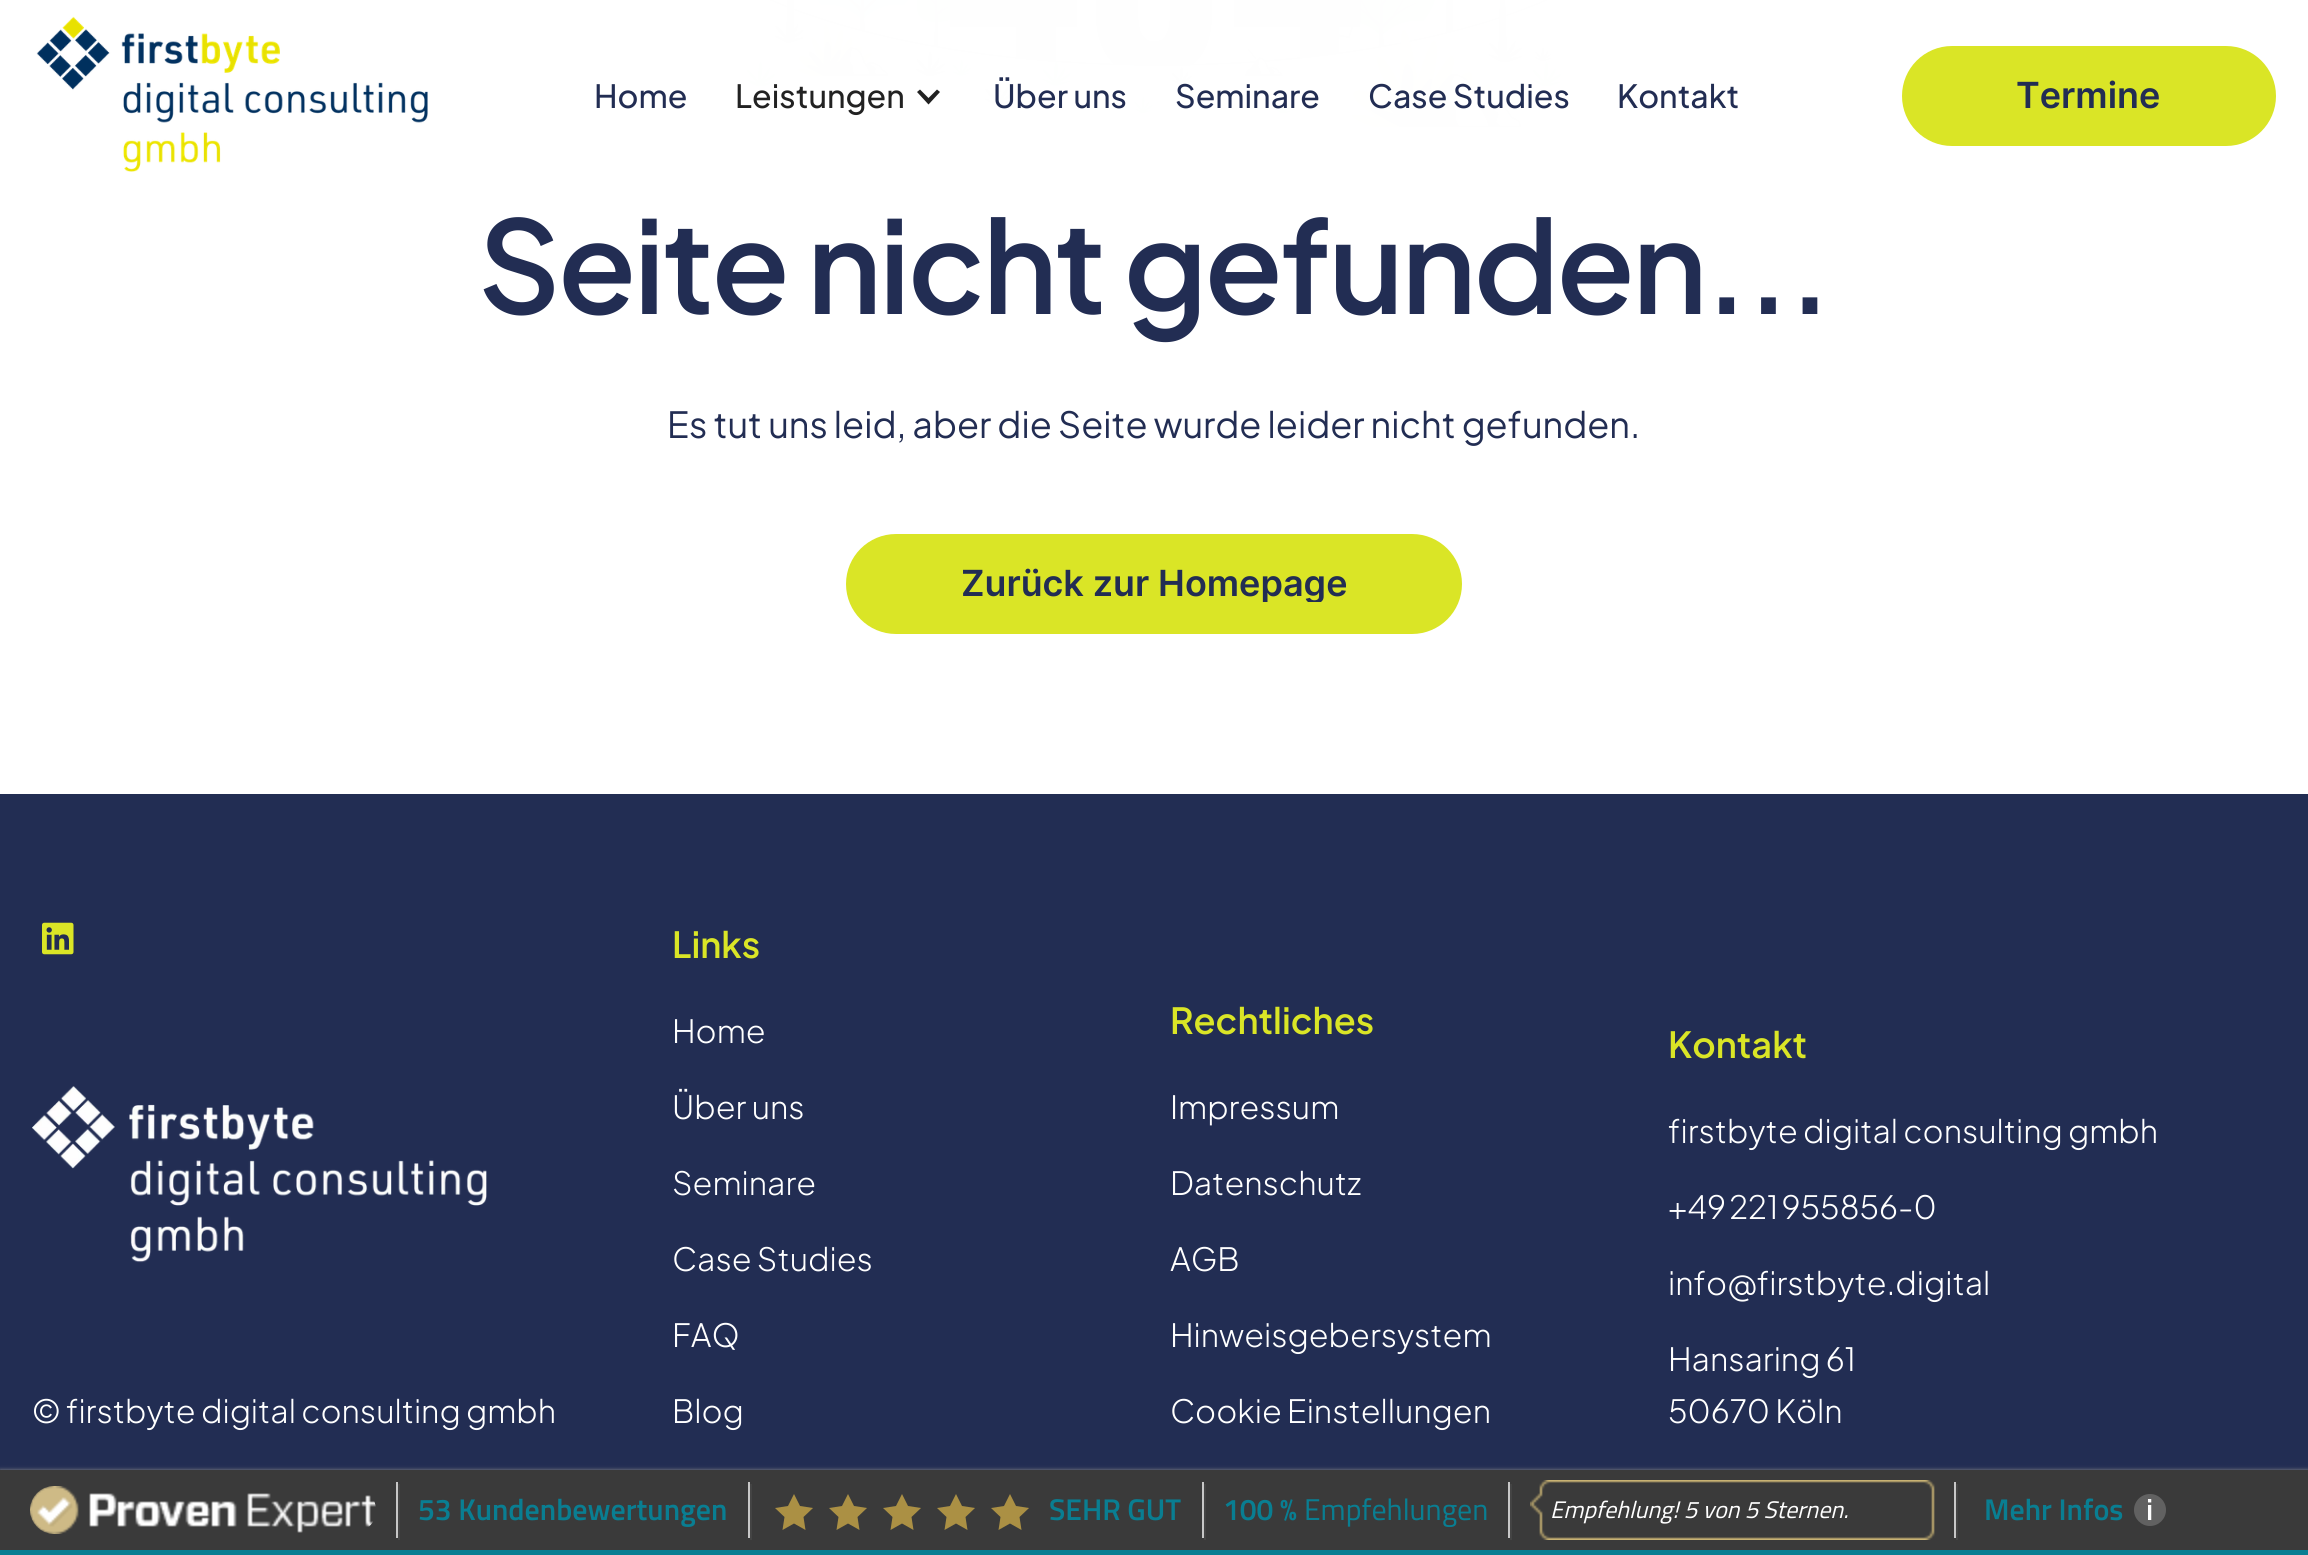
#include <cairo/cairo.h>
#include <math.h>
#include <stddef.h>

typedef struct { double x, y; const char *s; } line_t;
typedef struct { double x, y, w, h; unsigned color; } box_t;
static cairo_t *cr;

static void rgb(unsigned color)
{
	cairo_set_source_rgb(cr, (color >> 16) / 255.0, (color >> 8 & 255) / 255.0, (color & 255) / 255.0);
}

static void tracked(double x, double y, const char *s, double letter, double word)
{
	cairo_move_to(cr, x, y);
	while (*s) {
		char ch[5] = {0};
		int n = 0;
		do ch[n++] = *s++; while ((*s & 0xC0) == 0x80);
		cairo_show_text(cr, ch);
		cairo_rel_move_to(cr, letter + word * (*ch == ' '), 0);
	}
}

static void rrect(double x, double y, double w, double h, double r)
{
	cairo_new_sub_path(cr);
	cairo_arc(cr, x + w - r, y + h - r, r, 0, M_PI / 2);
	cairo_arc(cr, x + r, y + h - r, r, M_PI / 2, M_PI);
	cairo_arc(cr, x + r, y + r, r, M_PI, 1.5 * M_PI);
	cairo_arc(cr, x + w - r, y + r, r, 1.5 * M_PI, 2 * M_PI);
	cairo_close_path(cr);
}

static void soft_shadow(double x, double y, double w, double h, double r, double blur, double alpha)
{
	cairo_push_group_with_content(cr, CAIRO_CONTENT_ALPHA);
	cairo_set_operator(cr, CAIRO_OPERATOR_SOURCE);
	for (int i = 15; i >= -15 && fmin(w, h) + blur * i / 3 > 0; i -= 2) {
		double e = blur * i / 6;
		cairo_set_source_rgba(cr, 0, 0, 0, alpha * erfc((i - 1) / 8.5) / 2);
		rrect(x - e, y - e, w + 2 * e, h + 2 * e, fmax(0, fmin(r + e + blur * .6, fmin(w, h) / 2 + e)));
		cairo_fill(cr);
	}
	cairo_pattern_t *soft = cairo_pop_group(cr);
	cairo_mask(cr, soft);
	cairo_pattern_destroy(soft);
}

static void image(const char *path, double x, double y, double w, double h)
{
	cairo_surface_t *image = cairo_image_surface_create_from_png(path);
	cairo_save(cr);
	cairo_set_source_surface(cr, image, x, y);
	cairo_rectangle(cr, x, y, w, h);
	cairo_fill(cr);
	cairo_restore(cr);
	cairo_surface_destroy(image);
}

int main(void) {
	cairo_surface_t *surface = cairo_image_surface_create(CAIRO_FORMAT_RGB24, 2308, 1555);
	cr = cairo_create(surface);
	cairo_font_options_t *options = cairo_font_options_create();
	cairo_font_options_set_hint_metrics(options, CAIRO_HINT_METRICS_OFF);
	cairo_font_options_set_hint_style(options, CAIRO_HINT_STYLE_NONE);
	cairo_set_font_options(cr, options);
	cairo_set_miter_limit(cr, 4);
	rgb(0xffffff);
	cairo_paint(cr);
	image("img/1.png", 36, 16, 392, 156);
	image("img/2.png", 746, 0, 816, 128);
	rgb(0x222222);
	cairo_new_path(cr);
	cairo_move_to(cr, 937, 89.5);
	cairo_line_to(cr, 928.5, 98);
	cairo_line_to(cr, 920, 89.5);
	cairo_line_to(cr, 917, 92);
	cairo_line_to(cr, 928.5, 104.5);
	cairo_line_to(cr, 940, 92);
	cairo_close_path(cr);
	cairo_fill(cr);
	rgb(0xdae526);
	rrect(1902, 46, 374, 100, 50);
	cairo_fill(cr);
	rrect(846, 534, 616, 100, 50);
	cairo_fill(cr);
	rgb(0x222d53);
	cairo_rectangle(cr, 0, 794, 2308, 676);
	cairo_fill(cr);
	image("img/3.png", 42, 922, 32, 33);
	image("img/4.png", 32, 1086, 455, 177);
	rgb(0x888888);
	soft_shadow(0, 1470, 2308, 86, 0, 2, 1);
	rgb(0x3a3a3a);
	cairo_rectangle(cr, 0, 1470, 2308, 80);
	cairo_fill(cr);
	image("img/5.png", 30, 1486, 346, 48);
	{
		static const box_t items[] = {
			{398, 1484, 2, 56, 0x444444},
			{396, 1482, 2, 56, 0xc7c7c7},
			{750, 1484, 2, 56, 0x444444},
			{748, 1482, 2, 56, 0xc7c7c7},
		};
		for (size_t i = 0; i < sizeof items / sizeof *items; i++) {
			rgb(items[i].color);
			cairo_rectangle(cr, items[i].x, items[i].y, items[i].w, items[i].h);
			cairo_fill(cr);
		}
	}
	rgb(0xab9044);
	cairo_new_path(cr);
	cairo_move_to(cr, 794, 1494);
	cairo_line_to(cr, 800, 1506);
	cairo_line_to(cr, 813, 1508);
	cairo_line_to(cr, 803.5, 1517);
	cairo_line_to(cr, 805.5, 1530);
	cairo_line_to(cr, 794, 1523.5);
	cairo_line_to(cr, 782.5, 1530);
	cairo_line_to(cr, 784.5, 1517);
	cairo_line_to(cr, 775, 1508);
	cairo_line_to(cr, 788, 1506);
	cairo_close_path(cr);
	cairo_fill(cr);
	cairo_new_path(cr);
	cairo_move_to(cr, 848, 1494);
	cairo_line_to(cr, 854, 1506);
	cairo_line_to(cr, 867, 1508);
	cairo_line_to(cr, 857.5, 1517);
	cairo_line_to(cr, 859.5, 1530);
	cairo_line_to(cr, 848, 1523.5);
	cairo_line_to(cr, 836.5, 1530);
	cairo_line_to(cr, 838.5, 1517);
	cairo_line_to(cr, 829, 1508);
	cairo_line_to(cr, 842, 1506);
	cairo_close_path(cr);
	cairo_fill(cr);
	cairo_new_path(cr);
	cairo_move_to(cr, 902, 1494);
	cairo_line_to(cr, 908, 1506);
	cairo_line_to(cr, 921, 1508);
	cairo_line_to(cr, 911.5, 1517);
	cairo_line_to(cr, 913.5, 1530);
	cairo_line_to(cr, 902, 1523.5);
	cairo_line_to(cr, 890.5, 1530);
	cairo_line_to(cr, 892.5, 1517);
	cairo_line_to(cr, 883, 1508);
	cairo_line_to(cr, 896, 1506);
	cairo_close_path(cr);
	cairo_fill(cr);
	cairo_new_path(cr);
	cairo_move_to(cr, 956, 1494);
	cairo_line_to(cr, 962, 1506);
	cairo_line_to(cr, 975, 1508);
	cairo_line_to(cr, 965.5, 1517);
	cairo_line_to(cr, 967.5, 1530);
	cairo_line_to(cr, 956, 1523.5);
	cairo_line_to(cr, 944.5, 1530);
	cairo_line_to(cr, 946.5, 1517);
	cairo_line_to(cr, 937, 1508);
	cairo_line_to(cr, 950, 1506);
	cairo_close_path(cr);
	cairo_fill(cr);
	cairo_new_path(cr);
	cairo_move_to(cr, 1010, 1494);
	cairo_line_to(cr, 1016, 1506);
	cairo_line_to(cr, 1029, 1508);
	cairo_line_to(cr, 1019.5, 1517);
	cairo_line_to(cr, 1021.5, 1530);
	cairo_line_to(cr, 1010, 1523.5);
	cairo_line_to(cr, 998.5, 1530);
	cairo_line_to(cr, 1000.5, 1517);
	cairo_line_to(cr, 991, 1508);
	cairo_line_to(cr, 1004, 1506);
	cairo_close_path(cr);
	cairo_fill(cr);
	{
		static const box_t items[] = {
			{1204, 1484, 2, 56, 0x444444},
			{1202, 1482, 2, 56, 0xc7c7c7},
			{1510, 1484, 2, 56, 0x444444},
			{1508, 1482, 2, 56, 0xc7c7c7},
		};
		for (size_t i = 0; i < sizeof items / sizeof *items; i++) {
			rgb(items[i].color);
			cairo_rectangle(cr, items[i].x, items[i].y, items[i].w, items[i].h);
			cairo_fill(cr);
		}
	}
	image("img/6.png", 1530, 1480, 405, 60);
	rgb(0x444444);
	cairo_rectangle(cr, 1956, 1484, 2, 56);
	cairo_fill(cr);
	rgb(0xc7c7c7);
	cairo_rectangle(cr, 1954, 1482, 2, 56);
	cairo_fill(cr);
	rgb(0x616161);
	cairo_arc(cr, 2150, 1510, 16, 0, 2 * M_PI);
	cairo_fill(cr);
	rgb(0x097e92);
	cairo_rectangle(cr, 0, 1550, 2308, 5);
	cairo_fill(cr);
	cairo_select_font_face(cr, "Plus Jakarta Sans Medium", CAIRO_FONT_SLANT_NORMAL, CAIRO_FONT_WEIGHT_NORMAL);
	cairo_set_font_size(cr, 32);
	rgb(0x222d53);
	cairo_move_to(cr, 594, 108);
	cairo_show_text(cr, "Home");
	rgb(0x222222);
	cairo_move_to(cr, 735, 108);
	cairo_show_text(cr, "Leistungen");
	rgb(0x222d53);
	{
		static const line_t items[] = {
			{993, 108, "Über uns"},
			{1175, 108, "Seminare"},
			{1368, 108, "Case Studies"},
			{1617, 108, "Kontakt"},
		};
		for (size_t i = 0; i < sizeof items / sizeof *items; i++) {
			cairo_move_to(cr, items[i].x, items[i].y);
			cairo_show_text(cr, items[i].s);
		}
	}
	cairo_select_font_face(cr, "Inter SemiBold", CAIRO_FONT_SLANT_NORMAL, CAIRO_FONT_WEIGHT_NORMAL);
	cairo_set_font_size(cr, 36);
	cairo_move_to(cr, 2016, 108);
	cairo_show_text(cr, "Termine");
	cairo_select_font_face(cr, "Plus Jakarta Sans SemiBold", CAIRO_FONT_SLANT_NORMAL, CAIRO_FONT_WEIGHT_NORMAL);
	cairo_set_font_size(cr, 128);
	tracked(478, 314, "Seite nicht gefunden...", -2.75, 0);
	cairo_select_font_face(cr, "Plus Jakarta Sans", CAIRO_FONT_SLANT_NORMAL, CAIRO_FONT_WEIGHT_NORMAL);
	cairo_set_font_size(cr, 36);
	cairo_move_to(cr, 667, 438);
	cairo_show_text(cr, "Es tut uns leid, aber die Seite wurde leider nicht gefunden.");
	cairo_save(cr);
	cairo_rectangle(cr, 960, 566, 388, 36);
	cairo_clip(cr);
	cairo_select_font_face(cr, "Inter SemiBold", CAIRO_FONT_SLANT_NORMAL, CAIRO_FONT_WEIGHT_NORMAL);
	cairo_move_to(cr, 961, 596);
	cairo_show_text(cr, "Zurück zur Homepage");
	cairo_restore(cr);
	cairo_select_font_face(cr, "Plus Jakarta Sans Light", CAIRO_FONT_SLANT_NORMAL, CAIRO_FONT_WEIGHT_NORMAL);
	cairo_set_font_size(cr, 32);
	rgb(0xffffff);
	cairo_move_to(cr, 32, 1423);
	cairo_show_text(cr, "© firstbyte digital consulting gmbh");
	cairo_select_font_face(cr, "Plus Jakarta Sans SemiBold", CAIRO_FONT_SLANT_NORMAL, CAIRO_FONT_WEIGHT_NORMAL);
	cairo_set_font_size(cr, 36);
	rgb(0xdae526);
	cairo_move_to(cr, 672, 958);
	cairo_show_text(cr, "Links");
	cairo_select_font_face(cr, "Plus Jakarta Sans Light", CAIRO_FONT_SLANT_NORMAL, CAIRO_FONT_WEIGHT_NORMAL);
	cairo_set_font_size(cr, 32);
	rgb(0xffffff);
	{
		static const line_t items[] = {
			{672, 1043, "Home"},
			{672, 1119, "Über uns"},
			{672, 1195, "Seminare"},
			{672, 1271, "Case Studies"},
			{672, 1347, "FAQ"},
			{672, 1423, "Blog"},
		};
		for (size_t i = 0; i < sizeof items / sizeof *items; i++) {
			cairo_move_to(cr, items[i].x, items[i].y);
			cairo_show_text(cr, items[i].s);
		}
	}
	cairo_select_font_face(cr, "Plus Jakarta Sans SemiBold", CAIRO_FONT_SLANT_NORMAL, CAIRO_FONT_WEIGHT_NORMAL);
	cairo_set_font_size(cr, 36);
	rgb(0xdae526);
	cairo_move_to(cr, 1170, 1034);
	cairo_show_text(cr, "Rechtliches");
	cairo_select_font_face(cr, "Plus Jakarta Sans Light", CAIRO_FONT_SLANT_NORMAL, CAIRO_FONT_WEIGHT_NORMAL);
	cairo_set_font_size(cr, 32);
	rgb(0xffffff);
	{
		static const line_t items[] = {
			{1170, 1119, "Impressum"},
			{1170, 1195, "Datenschutz"},
			{1170, 1271, "AGB"},
			{1170, 1347, "Hinweisgebersystem"},
			{1170, 1423, "Cookie Einstellungen"},
		};
		for (size_t i = 0; i < sizeof items / sizeof *items; i++) {
			cairo_move_to(cr, items[i].x, items[i].y);
			cairo_show_text(cr, items[i].s);
		}
	}
	cairo_select_font_face(cr, "Plus Jakarta Sans SemiBold", CAIRO_FONT_SLANT_NORMAL, CAIRO_FONT_WEIGHT_NORMAL);
	cairo_set_font_size(cr, 36);
	rgb(0xdae526);
	cairo_move_to(cr, 1668, 1058);
	cairo_show_text(cr, "Kontakt");
	cairo_select_font_face(cr, "Plus Jakarta Sans Light", CAIRO_FONT_SLANT_NORMAL, CAIRO_FONT_WEIGHT_NORMAL);
	cairo_set_font_size(cr, 32);
	rgb(0xffffff);
	cairo_move_to(cr, 1668, 1143);
	cairo_show_text(cr, "firstbyte digital consulting gmbh");
	tracked(1668, 1219, "+49 221 955856-0", 0, -2);
	{
		static const line_t items[] = {
			{1668, 1295, "info@firstbyte.digital"},
			{1668, 1371, "Hansaring 61"},
			{1668, 1423, "50670 Köln"},
		};
		for (size_t i = 0; i < sizeof items / sizeof *items; i++) {
			cairo_move_to(cr, items[i].x, items[i].y);
			cairo_show_text(cr, items[i].s);
		}
	}
	cairo_select_font_face(cr, "Titillium Web SemiBold", CAIRO_FONT_SLANT_NORMAL, CAIRO_FONT_WEIGHT_NORMAL);
	cairo_set_font_size(cr, 30);
	rgb(0x097e92);
	{
		static const line_t items[] = {
			{418, 1520, "53 Kundenbewertungen"},
			{1049, 1520, "SEHR GUT"},
			{1223, 1520, "100 %"},
		};
		for (size_t i = 0; i < sizeof items / sizeof *items; i++) {
			cairo_move_to(cr, items[i].x, items[i].y);
			cairo_show_text(cr, items[i].s);
		}
	}
	cairo_select_font_face(cr, "Titillium Web", CAIRO_FONT_SLANT_NORMAL, CAIRO_FONT_WEIGHT_NORMAL);
	cairo_move_to(cr, 1304, 1520);
	cairo_show_text(cr, "Empfehlungen");
	cairo_select_font_face(cr, "Titillium Web", CAIRO_FONT_SLANT_ITALIC, CAIRO_FONT_WEIGHT_NORMAL);
	cairo_set_font_size(cr, 24);
	rgb(0xffffff);
	cairo_move_to(cr, 1550, 1518);
	cairo_show_text(cr, "Empfehlung! 5 von 5 Sternen.");
	cairo_select_font_face(cr, "Titillium Web SemiBold", CAIRO_FONT_SLANT_NORMAL, CAIRO_FONT_WEIGHT_NORMAL);
	cairo_set_font_size(cr, 30);
	rgb(0x097e92);
	cairo_move_to(cr, 1984, 1520);
	cairo_show_text(cr, "Mehr Infos");
	rgb(0xffffff);
	cairo_move_to(cr, 2146, 1520);
	cairo_show_text(cr, "i");
	cairo_surface_write_to_png(surface, "page.png");
	cairo_font_options_destroy(options);
	cairo_destroy(cr);
	cairo_surface_destroy(surface);
	return 0;
}
